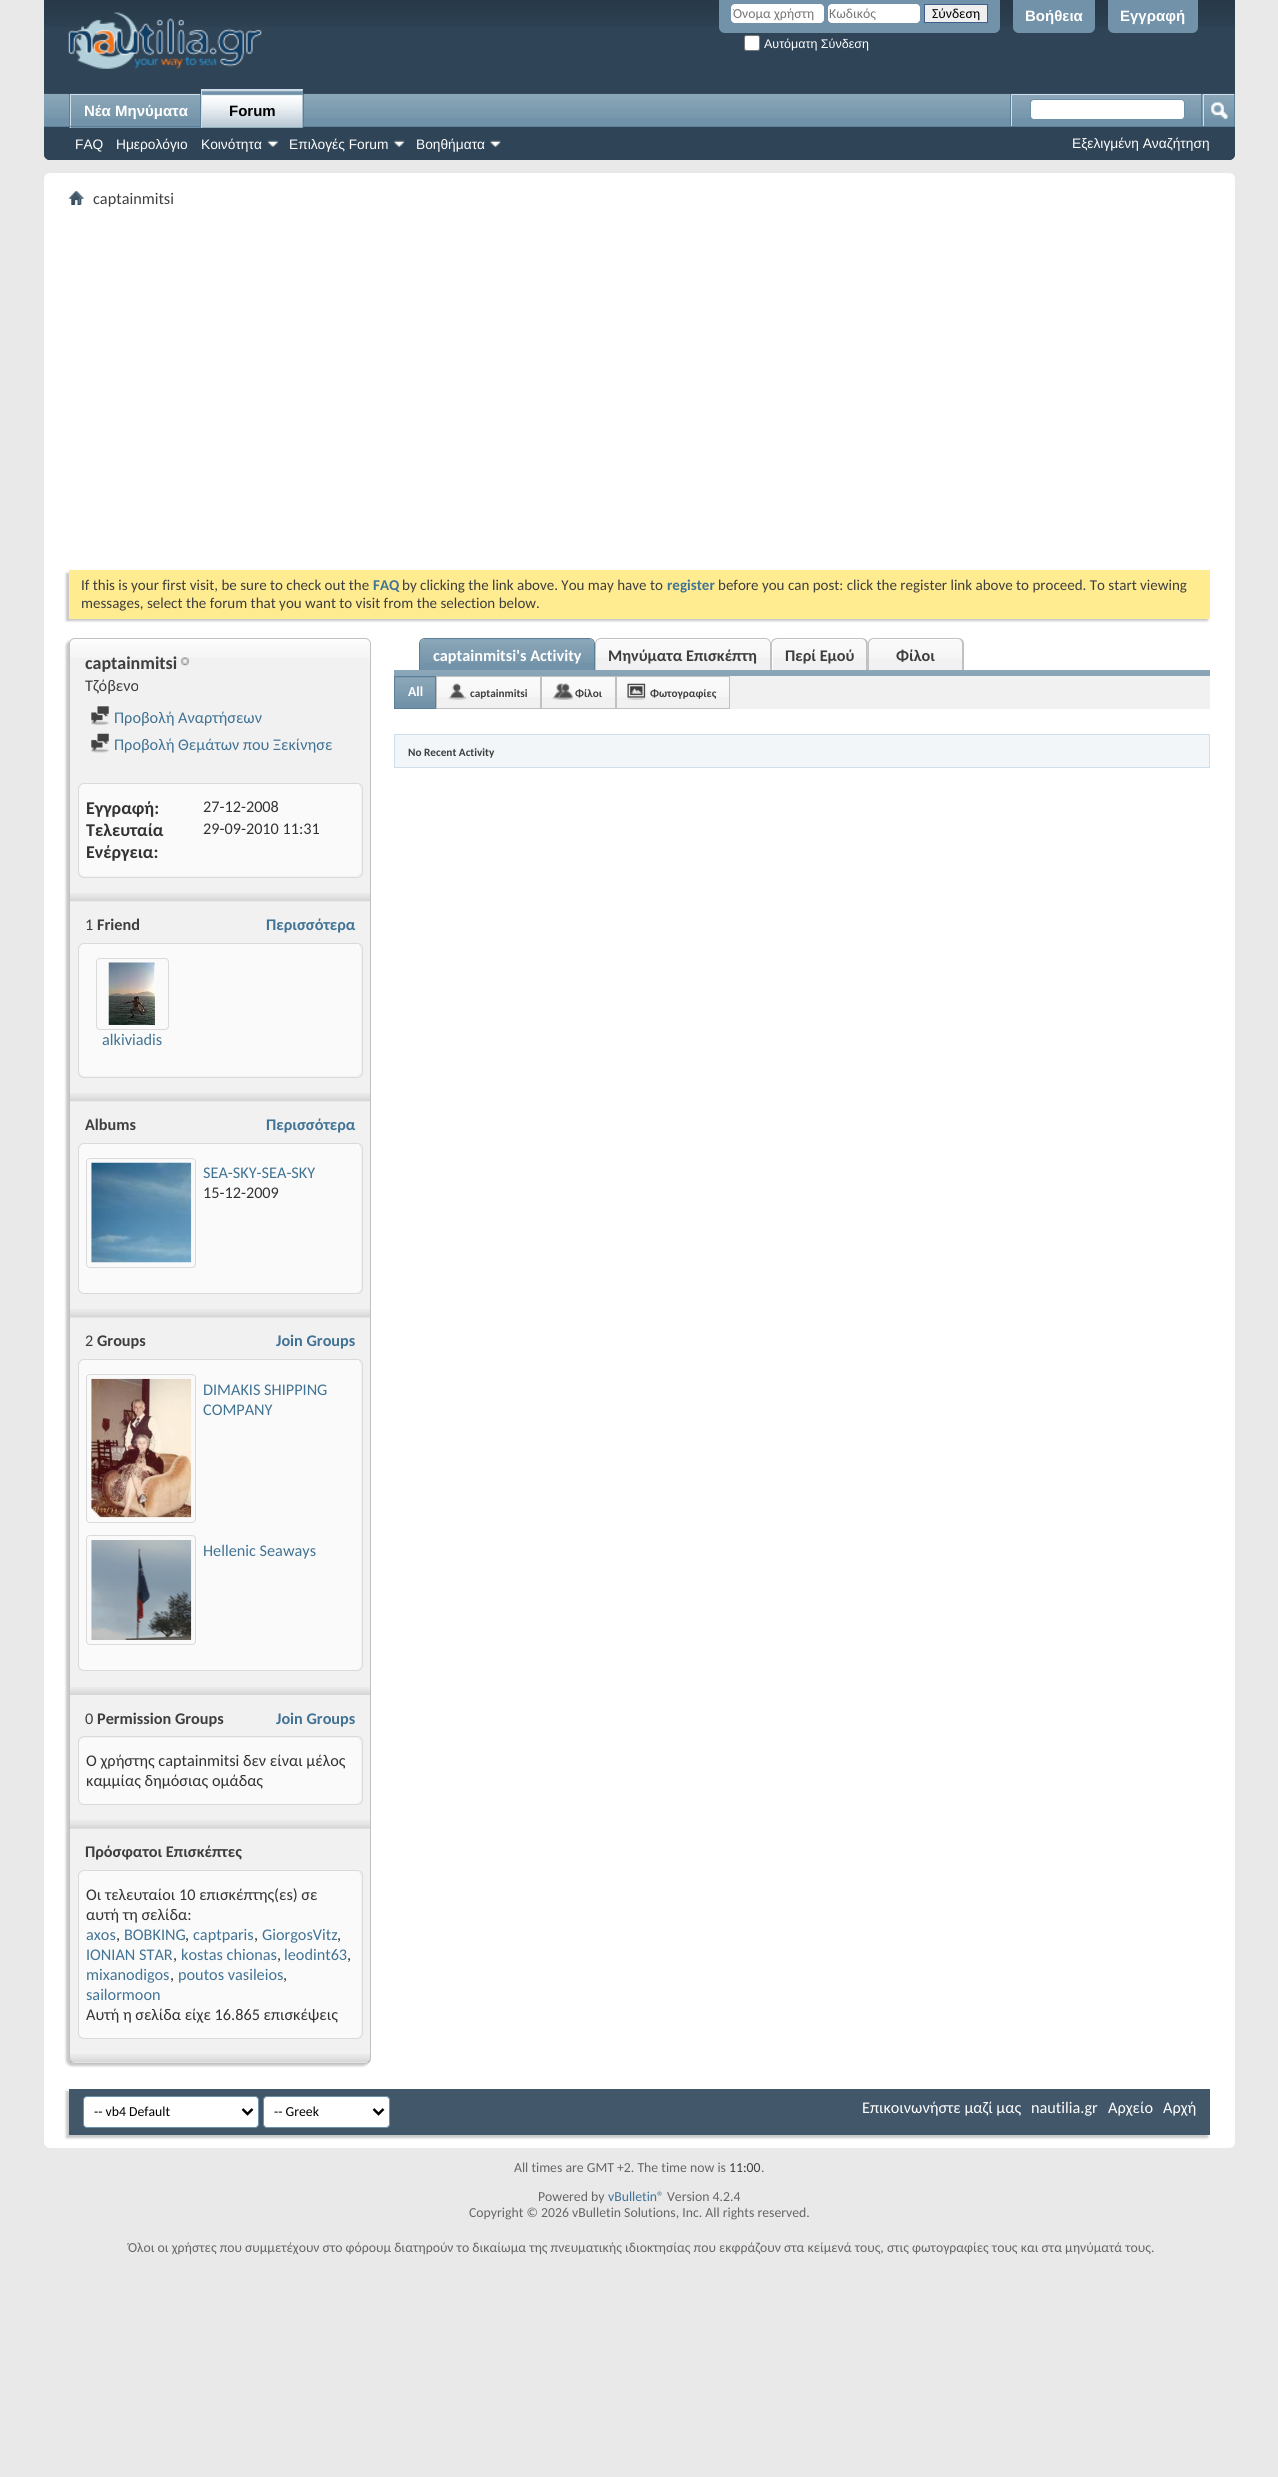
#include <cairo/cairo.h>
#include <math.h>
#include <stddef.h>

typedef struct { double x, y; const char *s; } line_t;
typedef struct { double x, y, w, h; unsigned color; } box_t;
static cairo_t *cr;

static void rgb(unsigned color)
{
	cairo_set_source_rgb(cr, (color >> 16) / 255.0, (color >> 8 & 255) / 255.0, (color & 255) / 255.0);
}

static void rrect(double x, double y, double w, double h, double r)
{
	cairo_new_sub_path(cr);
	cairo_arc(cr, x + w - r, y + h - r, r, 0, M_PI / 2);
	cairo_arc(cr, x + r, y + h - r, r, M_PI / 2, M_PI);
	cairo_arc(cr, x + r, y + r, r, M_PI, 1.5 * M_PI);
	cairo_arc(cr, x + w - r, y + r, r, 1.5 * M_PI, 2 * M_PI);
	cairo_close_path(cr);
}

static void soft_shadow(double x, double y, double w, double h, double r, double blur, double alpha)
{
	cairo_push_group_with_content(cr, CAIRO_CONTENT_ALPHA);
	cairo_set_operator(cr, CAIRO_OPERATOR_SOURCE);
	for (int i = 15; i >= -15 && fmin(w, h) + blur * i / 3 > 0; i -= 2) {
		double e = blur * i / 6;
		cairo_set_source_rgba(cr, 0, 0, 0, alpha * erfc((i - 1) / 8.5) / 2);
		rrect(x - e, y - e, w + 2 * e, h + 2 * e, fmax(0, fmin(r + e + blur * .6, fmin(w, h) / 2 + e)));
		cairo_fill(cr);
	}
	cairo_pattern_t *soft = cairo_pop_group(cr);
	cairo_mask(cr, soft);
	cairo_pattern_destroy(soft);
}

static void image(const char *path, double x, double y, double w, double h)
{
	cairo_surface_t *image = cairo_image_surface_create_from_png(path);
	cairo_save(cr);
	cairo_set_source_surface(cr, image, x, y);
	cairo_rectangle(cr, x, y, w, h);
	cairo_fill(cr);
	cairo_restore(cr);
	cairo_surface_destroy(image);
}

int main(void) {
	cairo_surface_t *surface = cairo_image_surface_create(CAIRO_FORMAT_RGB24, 1278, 2477);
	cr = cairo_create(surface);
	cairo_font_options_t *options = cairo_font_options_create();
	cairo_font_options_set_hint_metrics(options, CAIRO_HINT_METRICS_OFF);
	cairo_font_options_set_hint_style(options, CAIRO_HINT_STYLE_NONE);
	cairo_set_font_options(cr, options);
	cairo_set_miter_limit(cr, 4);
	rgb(0xe9e9e9);
	cairo_paint(cr);
	rgb(0x2f4456);
	cairo_new_path(cr);
	cairo_move_to(cr, 44, 0);
	cairo_line_to(cr, 1235, 0);
	cairo_line_to(cr, 1235, 154);
	cairo_curve_to(cr, 1235, 157.5, 1232.5, 160, 1229, 160);
	cairo_line_to(cr, 50, 160);
	cairo_curve_to(cr, 46.5, 160, 44, 157.5, 44, 154);
	cairo_close_path(cr);
	cairo_fill(cr);
	image("img/1.png", 44, 0, 1191, 27);
	image("img/2.png", 68, 12, 194, 57);
	rgb(0x7192a8);
	cairo_new_path(cr);
	cairo_move_to(cr, 719, 0);
	cairo_line_to(cr, 1000, 0);
	cairo_line_to(cr, 1000, 27);
	cairo_curve_to(cr, 1000, 30.5, 997.5, 33, 994, 33);
	cairo_line_to(cr, 725, 33);
	cairo_curve_to(cr, 721.5, 33, 719, 30.5, 719, 27);
	cairo_close_path(cr);
	cairo_fill(cr);
	rgb(0xffffff);
	rrect(731, 4, 93, 19, 4);
	cairo_fill(cr);
	rrect(828, 4, 92, 19, 4);
	cairo_fill(cr);
	rgb(0xefefef);
	cairo_rectangle(cr, 924.5, 4.5, 63, 18);
	cairo_fill_preserve(cr);
	rgb(0x415d8d);
	cairo_set_line_width(cr, 1);
	cairo_stroke(cr);
	rgb(0xffffff);
	rrect(744.5, 35.5, 15, 15, 2);
	cairo_fill_preserve(cr);
	rgb(0x767676);
	cairo_stroke(cr);
	rgb(0x7192a8);
	cairo_new_path(cr);
	cairo_move_to(cr, 1013, 0);
	cairo_line_to(cr, 1095, 0);
	cairo_line_to(cr, 1095, 27);
	cairo_curve_to(cr, 1095, 30.5, 1092.5, 33, 1089, 33);
	cairo_line_to(cr, 1019, 33);
	cairo_curve_to(cr, 1015.5, 33, 1013, 30.5, 1013, 27);
	cairo_close_path(cr);
	cairo_fill(cr);
	cairo_new_path(cr);
	cairo_move_to(cr, 1108, 0);
	cairo_line_to(cr, 1198, 0);
	cairo_line_to(cr, 1198, 27);
	cairo_curve_to(cr, 1198, 30.5, 1195.5, 33, 1192, 33);
	cairo_line_to(cr, 1114, 33);
	cairo_curve_to(cr, 1110.5, 33, 1108, 30.5, 1108, 27);
	cairo_close_path(cr);
	cairo_fill(cr);
	rgb(0x2f4456);
	cairo_new_path(cr);
	cairo_move_to(cr, 44, 94);
	cairo_line_to(cr, 1235, 94);
	cairo_line_to(cr, 1235, 154);
	cairo_curve_to(cr, 1235, 157.5, 1232.5, 160, 1229, 160);
	cairo_line_to(cr, 50, 160);
	cairo_curve_to(cr, 46.5, 160, 44, 157.5, 44, 154);
	cairo_close_path(cr);
	cairo_fill(cr);
	rgb(0x7192a8);
	cairo_rectangle(cr, 44, 94, 1190, 32);
	cairo_fill(cr);
	image("img/3.png", 44, 93, 1191, 25);
	{
		static const box_t items[] = {
			{200, 94, 1, 34, 0x5a7f97},
			{69, 94, 1, 34, 0x5a7f97},
			{71, 95, 129, 33, 0x7192a8},
		};
		for (size_t i = 0; i < sizeof items / sizeof *items; i++) {
			rgb(items[i].color);
			cairo_rectangle(cr, items[i].x, items[i].y, items[i].w, items[i].h);
			cairo_fill(cr);
		}
	}
	image("img/4.png", 71, 95, 129, 24);
	{
		static const box_t items[] = {
			{70, 94, 130, 1, 0xcedfeb},
			{70, 94, 1, 34, 0xcedfeb},
			{303, 94, 1, 32, 0x5a7f97},
			{44, 126, 1191, 1, 0x5a7f97},
			{202, 90, 101, 38, 0x7192a8},
		};
		for (size_t i = 0; i < sizeof items / sizeof *items; i++) {
			rgb(items[i].color);
			cairo_rectangle(cr, items[i].x, items[i].y, items[i].w, items[i].h);
			cairo_fill(cr);
		}
	}
	image("img/5.png", 202, 90, 101, 38);
	rgb(0xcedfeb);
	cairo_rectangle(cr, 201, 89, 102, 1);
	cairo_fill(cr);
	cairo_rectangle(cr, 201, 89, 1, 39);
	cairo_fill(cr);
	image("img/6.png", 267, 140, 12, 7);
	image("img/7.png", 393, 140, 12, 7);
	image("img/8.png", 490, 140, 11, 7);
	{
		static const box_t items[] = {
			{1010, 94, 1, 32, 0x5a7f97},
			{1011, 94, 190, 1, 0xcedfeb},
			{1011, 94, 1, 32, 0xcedfeb},
		};
		for (size_t i = 0; i < sizeof items / sizeof *items; i++) {
			rgb(items[i].color);
			cairo_rectangle(cr, items[i].x, items[i].y, items[i].w, items[i].h);
			cairo_fill(cr);
		}
	}
	rgb(0xffffff);
	rrect(1030.5, 99.5, 154, 20, 3.5);
	cairo_fill_preserve(cr);
	rgb(0x6b91ab);
	cairo_stroke(cr);
	{
		static const box_t items[] = {
			{1234, 94, 1, 32, 0x5a7f97},
			{1201, 94, 1, 32, 0x5a7f97},
			{1203, 94, 31, 1, 0xcedfeb},
			{1203, 94, 1, 32, 0xcedfeb},
		};
		for (size_t i = 0; i < sizeof items / sizeof *items; i++) {
			rgb(items[i].color);
			cairo_rectangle(cr, items[i].x, items[i].y, items[i].w, items[i].h);
			cairo_fill(cr);
		}
	}
	image("img/9.png", 1211, 102, 17, 18);
	rgb(0xffffff);
	rrect(44, 173, 1191, 1975, 6);
	cairo_fill(cr);
	image("img/10.png", 68, 191, 16, 14);
	rgb(0xc8c8c8);
	soft_shadow(66, 573, 1142, 48, 0, 1, 1);
	rgb(0xffeb90);
	cairo_rectangle(cr, 69, 570, 1141, 49);
	cairo_fill(cr);
	rgb(0xc8c8c8);
	soft_shadow(66, 640, 303, 1426, 6, 1, 1);
	rgb(0xf1f1f1);
	rrect(69, 638, 302, 1426, 6);
	cairo_fill(cr);
	image("img/11.png", 69, 639, 302, 19);
	rrect(69.5, 638.5, 301, 1425, 5.5);
	rgb(0xc1c1c1);
	cairo_stroke(cr);
	image("img/12.png", 70, 639, 300, 5);
	image("img/13.png", 181, 657, 8, 9);
	image("img/14.png", 91, 706, 18, 19);
	image("img/15.png", 90, 733, 19, 20);
	rrect(78.5, 783.5, 284, 94, 5.5);
	rgb(0xdadada);
	cairo_stroke(cr);
	rgb(0xfafafa);
	rrect(79, 784, 282, 92, 6);
	cairo_fill(cr);
	cairo_rectangle(cr, 357, 784, 2, 1);
	cairo_fill(cr);
	image("img/16.png", 70, 893, 300, 9);
	rrect(78.5, 943.5, 284, 134, 5.5);
	rgb(0xdadada);
	cairo_stroke(cr);
	rgb(0xfafafa);
	rrect(79, 944, 282, 132, 6);
	cairo_fill(cr);
	cairo_rectangle(cr, 357, 944, 2, 1);
	cairo_fill(cr);
	rrect(96.5, 958.5, 72, 71, 3.5);
	rgb(0xdadada);
	cairo_stroke(cr);
	image("img/17.png", 108, 962, 47, 63);
	image("img/16.png", 70, 1093, 300, 9);
	rrect(78.5, 1143.5, 284, 150, 5.5);
	cairo_stroke(cr);
	rgb(0xfafafa);
	rrect(79, 1144, 282, 149, 6);
	cairo_fill(cr);
	cairo_rectangle(cr, 357, 1144, 2, 1);
	cairo_fill(cr);
	rrect(86.5, 1158.5, 109, 109, 3.5);
	rgb(0xdadada);
	cairo_stroke(cr);
	image("img/18.png", 91, 1162, 101, 101);
	image("img/19.png", 70, 1309, 300, 9);
	rrect(78.5, 1359.5, 284, 311, 5.5);
	cairo_stroke(cr);
	rgb(0xfafafa);
	rrect(79, 1360, 282, 310, 6);
	cairo_fill(cr);
	cairo_rectangle(cr, 357, 1360, 2, 1);
	cairo_fill(cr);
	rrect(86.5, 1374.5, 109, 148, 3.5);
	rgb(0xdadada);
	cairo_stroke(cr);
	image("img/20.png", 91, 1378, 101, 140);
	rrect(86.5, 1535.5, 109, 109, 3.5);
	cairo_stroke(cr);
	image("img/21.png", 91, 1540, 101, 100);
	image("img/22.png", 70, 1687, 300, 8);
	rrect(78.5, 1736.5, 284, 68, 5.5);
	cairo_stroke(cr);
	rgb(0xfafafa);
	rrect(79, 1738, 282, 66, 6);
	cairo_fill(cr);
	cairo_rectangle(cr, 357, 1738, 2, 1);
	cairo_fill(cr);
	image("img/23.png", 70, 1820, 300, 9);
	rrect(78.5, 1870.5, 284, 168, 5.5);
	rgb(0xdadada);
	cairo_stroke(cr);
	rgb(0xfafafa);
	rrect(79, 1871, 282, 167, 6);
	cairo_fill(cr);
	cairo_rectangle(cr, 357, 1871, 2, 1);
	cairo_fill(cr);
	image("img/24.png", 70, 2054, 300, 9);
	rgb(0x7192a8);
	cairo_new_path(cr);
	cairo_move_to(cr, 425, 639);
	cairo_line_to(cr, 589, 639);
	cairo_curve_to(cr, 592, 639, 594, 641, 594, 644);
	cairo_line_to(cr, 594, 670);
	cairo_line_to(cr, 420, 670);
	cairo_line_to(cr, 420, 644);
	cairo_curve_to(cr, 420, 641, 422, 639, 425, 639);
	cairo_close_path(cr);
	cairo_fill(cr);
	image("img/25.png", 420, 639, 174, 24);
	rgb(0x5a7f97);
	cairo_set_fill_rule(cr, CAIRO_FILL_RULE_EVEN_ODD);
	cairo_new_path(cr);
	cairo_move_to(cr, 425, 638);
	cairo_line_to(cr, 589, 638);
	cairo_curve_to(cr, 592, 638, 595, 640, 595, 644);
	cairo_line_to(cr, 595, 670);
	cairo_line_to(cr, 419, 670);
	cairo_line_to(cr, 419, 644);
	cairo_curve_to(cr, 419, 640, 422, 638, 425, 638);
	cairo_close_path(cr);
	cairo_move_to(cr, 425, 639);
	cairo_line_to(cr, 589, 639);
	cairo_curve_to(cr, 592, 639, 594, 641, 594, 644);
	cairo_line_to(cr, 594, 670);
	cairo_line_to(cr, 420, 670);
	cairo_line_to(cr, 420, 644);
	cairo_curve_to(cr, 420, 641, 422, 639, 425, 639);
	cairo_close_path(cr);
	cairo_fill(cr);
	rgb(0xf1f1f1);
	cairo_new_path(cr);
	cairo_move_to(cr, 601, 639);
	cairo_line_to(cr, 765, 639);
	cairo_curve_to(cr, 768, 639, 770, 641, 770, 644);
	cairo_line_to(cr, 770, 670);
	cairo_line_to(cr, 596, 670);
	cairo_line_to(cr, 596, 644);
	cairo_curve_to(cr, 596, 641, 598, 639, 601, 639);
	cairo_close_path(cr);
	cairo_fill(cr);
	image("img/26.png", 596, 639, 174, 19);
	rgb(0xc1c1c1);
	cairo_new_path(cr);
	cairo_move_to(cr, 601, 638);
	cairo_line_to(cr, 765, 638);
	cairo_curve_to(cr, 768, 638, 771, 640, 771, 644);
	cairo_line_to(cr, 771, 670);
	cairo_line_to(cr, 595, 670);
	cairo_line_to(cr, 595, 644);
	cairo_curve_to(cr, 595, 640, 598, 638, 601, 638);
	cairo_close_path(cr);
	cairo_move_to(cr, 601, 639);
	cairo_line_to(cr, 765, 639);
	cairo_curve_to(cr, 768, 639, 770, 641, 770, 644);
	cairo_line_to(cr, 770, 670);
	cairo_line_to(cr, 596, 670);
	cairo_line_to(cr, 596, 644);
	cairo_curve_to(cr, 596, 641, 598, 639, 601, 639);
	cairo_close_path(cr);
	cairo_fill(cr);
	rgb(0xf1f1f1);
	cairo_new_path(cr);
	cairo_move_to(cr, 778, 639);
	cairo_line_to(cr, 861, 639);
	cairo_curve_to(cr, 864, 639, 866, 641, 866, 644);
	cairo_line_to(cr, 866, 670);
	cairo_line_to(cr, 773, 670);
	cairo_line_to(cr, 773, 644);
	cairo_curve_to(cr, 773, 641, 775, 639, 778, 639);
	cairo_close_path(cr);
	cairo_fill(cr);
	image("img/27.png", 773, 639, 93, 19);
	rgb(0xc1c1c1);
	cairo_new_path(cr);
	cairo_move_to(cr, 778, 638);
	cairo_line_to(cr, 861, 638);
	cairo_curve_to(cr, 865, 638, 868, 640, 868, 644);
	cairo_line_to(cr, 868, 670);
	cairo_line_to(cr, 771, 670);
	cairo_line_to(cr, 771, 644);
	cairo_curve_to(cr, 771, 640, 774, 638, 778, 638);
	cairo_close_path(cr);
	cairo_move_to(cr, 778, 639);
	cairo_line_to(cr, 861, 639);
	cairo_curve_to(cr, 864, 639, 866, 641, 866, 644);
	cairo_line_to(cr, 866, 670);
	cairo_line_to(cr, 772, 670);
	cairo_line_to(cr, 772, 644);
	cairo_curve_to(cr, 772, 641, 775, 639, 778, 639);
	cairo_close_path(cr);
	cairo_fill(cr);
	rgb(0xf1f1f1);
	cairo_new_path(cr);
	cairo_move_to(cr, 874, 639);
	cairo_line_to(cr, 958, 639);
	cairo_curve_to(cr, 961, 639, 963, 641, 963, 644);
	cairo_line_to(cr, 963, 670);
	cairo_line_to(cr, 869, 670);
	cairo_line_to(cr, 869, 644);
	cairo_curve_to(cr, 869, 641, 871, 639, 874, 639);
	cairo_close_path(cr);
	cairo_fill(cr);
	image("img/28.png", 867, 639, 96, 20);
	rgb(0xc1c1c1);
	cairo_new_path(cr);
	cairo_move_to(cr, 874, 638);
	cairo_line_to(cr, 958, 638);
	cairo_curve_to(cr, 961, 638, 964, 640, 964, 644);
	cairo_line_to(cr, 964, 670);
	cairo_line_to(cr, 868, 670);
	cairo_line_to(cr, 868, 644);
	cairo_curve_to(cr, 868, 640, 870, 638, 874, 638);
	cairo_close_path(cr);
	cairo_move_to(cr, 874, 639);
	cairo_line_to(cr, 958, 639);
	cairo_curve_to(cr, 960, 639, 962, 641, 962, 644);
	cairo_line_to(cr, 962, 670);
	cairo_line_to(cr, 869, 670);
	cairo_line_to(cr, 869, 644);
	cairo_curve_to(cr, 869, 641, 871, 639, 874, 639);
	cairo_close_path(cr);
	cairo_fill(cr);
	rgb(0x7192a8);
	cairo_rectangle(cr, 394, 670, 816, 6);
	cairo_fill(cr);
	image("img/29.png", 394, 670, 816, 6);
	rgb(0xf1f1f1);
	cairo_rectangle(cr, 437, 676, 773, 33);
	cairo_fill(cr);
	rgb(0x7192a8);
	cairo_rectangle(cr, 395, 677, 40, 31);
	cairo_fill(cr);
	image("img/30.png", 395, 677, 40, 25);
	cairo_rectangle(cr, 394.5, 676.5, 41, 32);
	rgb(0x5a7f97);
	cairo_stroke(cr);
	image("img/31.png", 437, 677, 103, 20);
	cairo_rectangle(cr, 436.5, 676.5, 104, 32);
	rgb(0xc1c1c1);
	cairo_stroke(cr);
	image("img/32.png", 448, 683, 19, 17);
	image("img/33.png", 542, 677, 73, 20);
	cairo_rectangle(cr, 541.5, 676.5, 74, 32);
	cairo_stroke(cr);
	image("img/34.png", 552, 683, 21, 17);
	image("img/35.png", 617, 677, 112, 20);
	cairo_rectangle(cr, 616.5, 676.5, 113, 32);
	cairo_stroke(cr);
	image("img/36.png", 627, 683, 19, 17);
	rgb(0xf2f6f8);
	cairo_rectangle(cr, 394.5, 734.5, 815, 33);
	cairo_fill_preserve(cr);
	rgb(0xcedfeb);
	cairo_stroke(cr);
	rgb(0xc8c8c8);
	soft_shadow(66, 2091, 1142, 47, 0, 1, 1);
	rgb(0x425769);
	cairo_rectangle(cr, 69, 2089, 1141, 46);
	cairo_fill(cr);
	rgb(0xffffff);
	rrect(83.5, 2096.5, 175, 31, 3.5);
	cairo_fill_preserve(cr);
	rgb(0x6b91ab);
	cairo_stroke(cr);
	cairo_new_path(cr);
	cairo_move_to(cr, 242.5, 2109);
	cairo_line_to(cr, 247.5, 2114);
	cairo_line_to(cr, 252.5, 2109);
	rgb(0x000000);
	cairo_set_line_width(cr, 2.5);
	cairo_stroke(cr);
	rgb(0xffffff);
	rrect(263.5, 2096.5, 126, 31, 3.5);
	cairo_fill_preserve(cr);
	rgb(0x6b91ab);
	cairo_set_line_width(cr, 1);
	cairo_stroke(cr);
	cairo_new_path(cr);
	cairo_move_to(cr, 373.5, 2109);
	cairo_line_to(cr, 378.5, 2114);
	cairo_line_to(cr, 383.5, 2109);
	rgb(0x000000);
	cairo_set_line_width(cr, 2.5);
	cairo_stroke(cr);
	cairo_save(cr);
	cairo_set_fill_rule(cr, CAIRO_FILL_RULE_WINDING);
	cairo_rectangle(cr, 733, 5, 90, 16);
	cairo_clip(cr);
	cairo_select_font_face(cr, "Carlito", CAIRO_FONT_SLANT_NORMAL, CAIRO_FONT_WEIGHT_NORMAL);
	cairo_set_font_size(cr, 13.75);
	rgb(0x777777);
	cairo_move_to(cr, 733, 18);
	cairo_show_text(cr, "Όνομα χρήστη");
	cairo_restore(cr);
	cairo_select_font_face(cr, "Carlito", CAIRO_FONT_SLANT_NORMAL, CAIRO_FONT_WEIGHT_NORMAL);
	cairo_set_font_size(cr, 13.75);
	rgb(0x777777);
	cairo_move_to(cr, 829, 18);
	cairo_show_text(cr, "Κωδικός");
	rgb(0x000000);
	cairo_move_to(cr, 932, 18);
	cairo_show_text(cr, "Σύνδεση");
	cairo_select_font_face(cr, "Liberation Sans", CAIRO_FONT_SLANT_NORMAL, CAIRO_FONT_WEIGHT_NORMAL);
	cairo_set_font_size(cr, 12.5);
	rgb(0xffffff);
	cairo_move_to(cr, 764, 48);
	cairo_show_text(cr, "Αυτόματη Σύνδεση");
	cairo_select_font_face(cr, "Liberation Sans", CAIRO_FONT_SLANT_NORMAL, CAIRO_FONT_WEIGHT_BOLD);
	cairo_set_font_size(cr, 15);
	{
		static const line_t items[] = {
			{1025, 21, "Βοήθεια"},
			{1120, 21, "Εγγραφή"},
			{84, 116, "Νέα Μηνύματα"},
		};
		for (size_t i = 0; i < sizeof items / sizeof *items; i++) {
			cairo_move_to(cr, items[i].x, items[i].y);
			cairo_show_text(cr, items[i].s);
		}
	}
	rgb(0x000000);
	cairo_move_to(cr, 229, 116);
	cairo_show_text(cr, "Forum");
	cairo_select_font_face(cr, "Liberation Sans", CAIRO_FONT_SLANT_NORMAL, CAIRO_FONT_WEIGHT_NORMAL);
	cairo_set_font_size(cr, 13.75);
	rgb(0xffffff);
	{
		static const line_t items[] = {
			{75, 149, "FAQ"},
			{116, 149, "Ημερολόγιο"},
			{201, 149, "Κοινότητα"},
			{289, 149, "Επιλογές Forum"},
			{416, 149, "Βοηθήματα"},
			{1072, 148, "Εξελιγμένη Αναζήτηση"},
		};
		for (size_t i = 0; i < sizeof items / sizeof *items; i++) {
			cairo_move_to(cr, items[i].x, items[i].y);
			cairo_show_text(cr, items[i].s);
		}
	}
	cairo_select_font_face(cr, "Carlito", CAIRO_FONT_SLANT_NORMAL, CAIRO_FONT_WEIGHT_NORMAL);
	cairo_set_font_size(cr, 16.25);
	rgb(0x3e3e3e);
	cairo_move_to(cr, 93, 204);
	cairo_show_text(cr, "captainmitsi");
	cairo_set_font_size(cr, 15);
	cairo_move_to(cr, 81, 590);
	cairo_show_text(cr, "If this is your first visit, be sure to check out the");
	cairo_select_font_face(cr, "Carlito", CAIRO_FONT_SLANT_NORMAL, CAIRO_FONT_WEIGHT_BOLD);
	rgb(0x417394);
	cairo_move_to(cr, 373, 590);
	cairo_show_text(cr, "FAQ");
	cairo_select_font_face(cr, "Carlito", CAIRO_FONT_SLANT_NORMAL, CAIRO_FONT_WEIGHT_NORMAL);
	rgb(0x3e3e3e);
	cairo_move_to(cr, 402, 590);
	cairo_show_text(cr, "by clicking the link above. You may have to");
	cairo_select_font_face(cr, "Carlito", CAIRO_FONT_SLANT_NORMAL, CAIRO_FONT_WEIGHT_BOLD);
	rgb(0x417394);
	cairo_move_to(cr, 667, 590);
	cairo_show_text(cr, "register");
	cairo_select_font_face(cr, "Carlito", CAIRO_FONT_SLANT_NORMAL, CAIRO_FONT_WEIGHT_NORMAL);
	rgb(0x3e3e3e);
	cairo_move_to(cr, 718, 590);
	cairo_show_text(cr, "before you can post: click the register link above to proceed. To start viewing");
	cairo_move_to(cr, 81, 608);
	cairo_show_text(cr, "messages, select the forum that you want to visit from the selection below.");
	cairo_select_font_face(cr, "Carlito", CAIRO_FONT_SLANT_NORMAL, CAIRO_FONT_WEIGHT_BOLD);
	cairo_set_font_size(cr, 18);
	cairo_move_to(cr, 85, 669);
	cairo_show_text(cr, "captainmitsi");
	cairo_select_font_face(cr, "Carlito", CAIRO_FONT_SLANT_NORMAL, CAIRO_FONT_WEIGHT_NORMAL);
	cairo_set_font_size(cr, 16.25);
	cairo_move_to(cr, 85, 691);
	cairo_show_text(cr, "Τζόβενο");
	rgb(0x417394);
	cairo_move_to(cr, 114, 723);
	cairo_show_text(cr, "Προβολή Αναρτήσεων");
	cairo_move_to(cr, 114, 750);
	cairo_show_text(cr, "Προβολή Θεμάτων που Ξεκίνησε");
	cairo_select_font_face(cr, "Carlito", CAIRO_FONT_SLANT_NORMAL, CAIRO_FONT_WEIGHT_BOLD);
	cairo_set_font_size(cr, 18);
	rgb(0x333333);
	cairo_move_to(cr, 86, 814);
	cairo_show_text(cr, "Εγγραφή:");
	cairo_select_font_face(cr, "Carlito", CAIRO_FONT_SLANT_NORMAL, CAIRO_FONT_WEIGHT_NORMAL);
	cairo_set_font_size(cr, 16.25);
	cairo_move_to(cr, 203, 812);
	cairo_show_text(cr, "27-12-2008");
	cairo_select_font_face(cr, "Carlito", CAIRO_FONT_SLANT_NORMAL, CAIRO_FONT_WEIGHT_BOLD);
	cairo_set_font_size(cr, 18);
	cairo_move_to(cr, 86, 836);
	cairo_show_text(cr, "Τελευταία");
	cairo_move_to(cr, 86, 858);
	cairo_show_text(cr, "Ενέργεια:");
	cairo_select_font_face(cr, "Carlito", CAIRO_FONT_SLANT_NORMAL, CAIRO_FONT_WEIGHT_NORMAL);
	cairo_set_font_size(cr, 16.25);
	cairo_move_to(cr, 203, 834);
	cairo_show_text(cr, "29-09-2010 11:31");
	rgb(0x3e3e3e);
	cairo_move_to(cr, 85, 930);
	cairo_show_text(cr, "1");
	cairo_select_font_face(cr, "Carlito", CAIRO_FONT_SLANT_NORMAL, CAIRO_FONT_WEIGHT_BOLD);
	cairo_move_to(cr, 97, 930);
	cairo_show_text(cr, "Friend");
	rgb(0x417394);
	cairo_move_to(cr, 266, 930);
	cairo_show_text(cr, "Περισσότερα");
	cairo_select_font_face(cr, "Carlito", CAIRO_FONT_SLANT_NORMAL, CAIRO_FONT_WEIGHT_NORMAL);
	cairo_move_to(cr, 102, 1045);
	cairo_show_text(cr, "alkiviadis");
	cairo_select_font_face(cr, "Carlito", CAIRO_FONT_SLANT_NORMAL, CAIRO_FONT_WEIGHT_BOLD);
	rgb(0x3e3e3e);
	cairo_move_to(cr, 85, 1130);
	cairo_show_text(cr, "Albums");
	rgb(0x417394);
	cairo_move_to(cr, 266, 1130);
	cairo_show_text(cr, "Περισσότερα");
	cairo_select_font_face(cr, "Carlito", CAIRO_FONT_SLANT_NORMAL, CAIRO_FONT_WEIGHT_NORMAL);
	cairo_move_to(cr, 203, 1178);
	cairo_show_text(cr, "SEA-SKY-SEA-SKY");
	rgb(0x333333);
	cairo_move_to(cr, 203, 1198);
	cairo_show_text(cr, "15-12-2009");
	rgb(0x3e3e3e);
	cairo_move_to(cr, 85, 1346);
	cairo_show_text(cr, "2");
	cairo_select_font_face(cr, "Carlito", CAIRO_FONT_SLANT_NORMAL, CAIRO_FONT_WEIGHT_BOLD);
	cairo_move_to(cr, 97, 1346);
	cairo_show_text(cr, "Groups");
	rgb(0x417394);
	cairo_move_to(cr, 276, 1346);
	cairo_show_text(cr, "Join Groups");
	cairo_select_font_face(cr, "Carlito", CAIRO_FONT_SLANT_NORMAL, CAIRO_FONT_WEIGHT_NORMAL);
	{
		static const line_t items[] = {
			{203, 1395, "DIMAKIS SHIPPING"},
			{203, 1415, "COMPANY"},
			{203, 1556, "Hellenic Seaways"},
		};
		for (size_t i = 0; i < sizeof items / sizeof *items; i++) {
			cairo_move_to(cr, items[i].x, items[i].y);
			cairo_show_text(cr, items[i].s);
		}
	}
	rgb(0x3e3e3e);
	cairo_move_to(cr, 85, 1724);
	cairo_show_text(cr, "0");
	cairo_select_font_face(cr, "Carlito", CAIRO_FONT_SLANT_NORMAL, CAIRO_FONT_WEIGHT_BOLD);
	cairo_move_to(cr, 97, 1724);
	cairo_show_text(cr, "Permission Groups");
	rgb(0x417394);
	cairo_move_to(cr, 276, 1724);
	cairo_show_text(cr, "Join Groups");
	cairo_select_font_face(cr, "Carlito", CAIRO_FONT_SLANT_NORMAL, CAIRO_FONT_WEIGHT_NORMAL);
	rgb(0x333333);
	cairo_move_to(cr, 86, 1766);
	cairo_show_text(cr, "Ο χρήστης captainmitsi δεν είναι μέλος");
	cairo_move_to(cr, 86, 1786);
	cairo_show_text(cr, "καμμίας δημόσιας ομάδας");
	cairo_select_font_face(cr, "Carlito", CAIRO_FONT_SLANT_NORMAL, CAIRO_FONT_WEIGHT_BOLD);
	rgb(0x3e3e3e);
	cairo_move_to(cr, 85, 1857);
	cairo_show_text(cr, "Πρόσφατοι Επισκέπτες");
	cairo_select_font_face(cr, "Carlito", CAIRO_FONT_SLANT_NORMAL, CAIRO_FONT_WEIGHT_NORMAL);
	rgb(0x333333);
	cairo_move_to(cr, 86, 1900);
	cairo_show_text(cr, "Οι τελευταίοι 10 επισκέπτης(εs) σε");
	cairo_move_to(cr, 86, 1920);
	cairo_show_text(cr, "αυτή τη σελίδα:");
	rgb(0x417394);
	cairo_move_to(cr, 86, 1940);
	cairo_show_text(cr, "axos");
	rgb(0x333333);
	cairo_move_to(cr, 116, 1940);
	cairo_show_text(cr, ",");
	rgb(0x417394);
	cairo_move_to(cr, 124, 1940);
	cairo_show_text(cr, "BOBKING");
	rgb(0x333333);
	cairo_move_to(cr, 185, 1940);
	cairo_show_text(cr, ",");
	rgb(0x417394);
	cairo_move_to(cr, 193, 1940);
	cairo_show_text(cr, "captparis");
	rgb(0x333333);
	cairo_move_to(cr, 254, 1940);
	cairo_show_text(cr, ",");
	rgb(0x417394);
	cairo_move_to(cr, 262, 1940);
	cairo_show_text(cr, "GiorgosVitz");
	rgb(0x333333);
	cairo_move_to(cr, 337, 1940);
	cairo_show_text(cr, ",");
	rgb(0x417394);
	cairo_move_to(cr, 86, 1960);
	cairo_show_text(cr, "IONIAN STAR");
	rgb(0x333333);
	cairo_move_to(cr, 173, 1960);
	cairo_show_text(cr, ",");
	rgb(0x417394);
	cairo_move_to(cr, 181, 1960);
	cairo_show_text(cr, "kostas chionas");
	rgb(0x333333);
	cairo_move_to(cr, 277, 1960);
	cairo_show_text(cr, ",");
	rgb(0x417394);
	cairo_move_to(cr, 284, 1960);
	cairo_show_text(cr, "leodint63");
	rgb(0x333333);
	cairo_move_to(cr, 347, 1960);
	cairo_show_text(cr, ",");
	rgb(0x417394);
	cairo_move_to(cr, 86, 1980);
	cairo_show_text(cr, "mixanodigos");
	rgb(0x333333);
	cairo_move_to(cr, 170, 1980);
	cairo_show_text(cr, ",");
	rgb(0x417394);
	cairo_move_to(cr, 178, 1980);
	cairo_show_text(cr, "poutos vasileios");
	rgb(0x333333);
	cairo_move_to(cr, 283, 1980);
	cairo_show_text(cr, ",");
	rgb(0x417394);
	cairo_move_to(cr, 86, 2000);
	cairo_show_text(cr, "sailormoon");
	rgb(0x333333);
	cairo_move_to(cr, 86, 2020);
	cairo_show_text(cr, "Αυτή η σελίδα είχε 16.865 επισκέψεις");
	cairo_select_font_face(cr, "Carlito", CAIRO_FONT_SLANT_NORMAL, CAIRO_FONT_WEIGHT_BOLD);
	rgb(0xffffff);
	cairo_move_to(cr, 433, 661);
	cairo_show_text(cr, "captainmitsi's Activity");
	rgb(0x3e3e3e);
	{
		static const line_t items[] = {
			{608, 661, "Μηνύματα Επισκέπτη"},
			{785, 661, "Περί Εμού"},
			{896, 661, "Φίλοι"},
		};
		for (size_t i = 0; i < sizeof items / sizeof *items; i++) {
			cairo_move_to(cr, items[i].x, items[i].y);
			cairo_show_text(cr, items[i].s);
		}
	}
	cairo_set_font_size(cr, 13.75);
	rgb(0xffffff);
	cairo_move_to(cr, 408, 696);
	cairo_show_text(cr, "All");
	cairo_set_font_size(cr, 11.25);
	rgb(0x3e3e3e);
	{
		static const line_t items[] = {
			{470, 697, "captainmitsi"},
			{575, 697, "Φίλοι"},
			{650, 697, "Φωτογραφίες"},
			{408, 756, "No Recent Activity"},
		};
		for (size_t i = 0; i < sizeof items / sizeof *items; i++) {
			cairo_move_to(cr, items[i].x, items[i].y);
			cairo_show_text(cr, items[i].s);
		}
	}
	cairo_select_font_face(cr, "Carlito", CAIRO_FONT_SLANT_NORMAL, CAIRO_FONT_WEIGHT_NORMAL);
	cairo_set_font_size(cr, 13.75);
	rgb(0x000000);
	cairo_move_to(cr, 94, 2116);
	cairo_show_text(cr, "-- vb4 Default");
	cairo_move_to(cr, 274, 2116);
	cairo_show_text(cr, "-- Greek");
	cairo_set_font_size(cr, 16.25);
	rgb(0xffffff);
	{
		static const line_t items[] = {
			{862, 2113, "Επικοινωνήστε μαζί μας"},
			{1031, 2113, "nautilia.gr"},
			{1108, 2113, "Αρχείο"},
			{1163, 2113, "Αρχή"},
		};
		for (size_t i = 0; i < sizeof items / sizeof *items; i++) {
			cairo_move_to(cr, items[i].x, items[i].y);
			cairo_show_text(cr, items[i].s);
		}
	}
	cairo_set_font_size(cr, 13.75);
	rgb(0x666666);
	cairo_move_to(cr, 514, 2172);
	cairo_show_text(cr, "All times are GMT +2. The time now is");
	rgb(0x3e3e3e);
	cairo_move_to(cr, 729, 2172);
	cairo_show_text(cr, "11:00");
	rgb(0x666666);
	cairo_move_to(cr, 761, 2172);
	cairo_show_text(cr, ".");
	cairo_move_to(cr, 538, 2201);
	cairo_show_text(cr, "Powered by");
	rgb(0x417394);
	cairo_move_to(cr, 608, 2201);
	cairo_show_text(cr, "vBulletin®");
	rgb(0x666666);
	{
		static const line_t items[] = {
			{667, 2201, "Version 4.2.4"},
			{469, 2217, "Copyright © 2026 vBulletin Solutions, Inc. All rights reserved."},
			{128, 2252, "Όλοι οι χρήστες που συμμετέχουν στο φόρουμ διατηρούν το δικαίωμα της πνευματικής ιδιοκτησίας που εκφράζουν στα κείμενά τους, στις φωτογραφίες τους και στα μηνύματά τους."},
		};
		for (size_t i = 0; i < sizeof items / sizeof *items; i++) {
			cairo_move_to(cr, items[i].x, items[i].y);
			cairo_show_text(cr, items[i].s);
		}
	}
	cairo_surface_write_to_png(surface, "page.png");
	cairo_font_options_destroy(options);
	cairo_destroy(cr);
	cairo_surface_destroy(surface);
	return 0;
}
